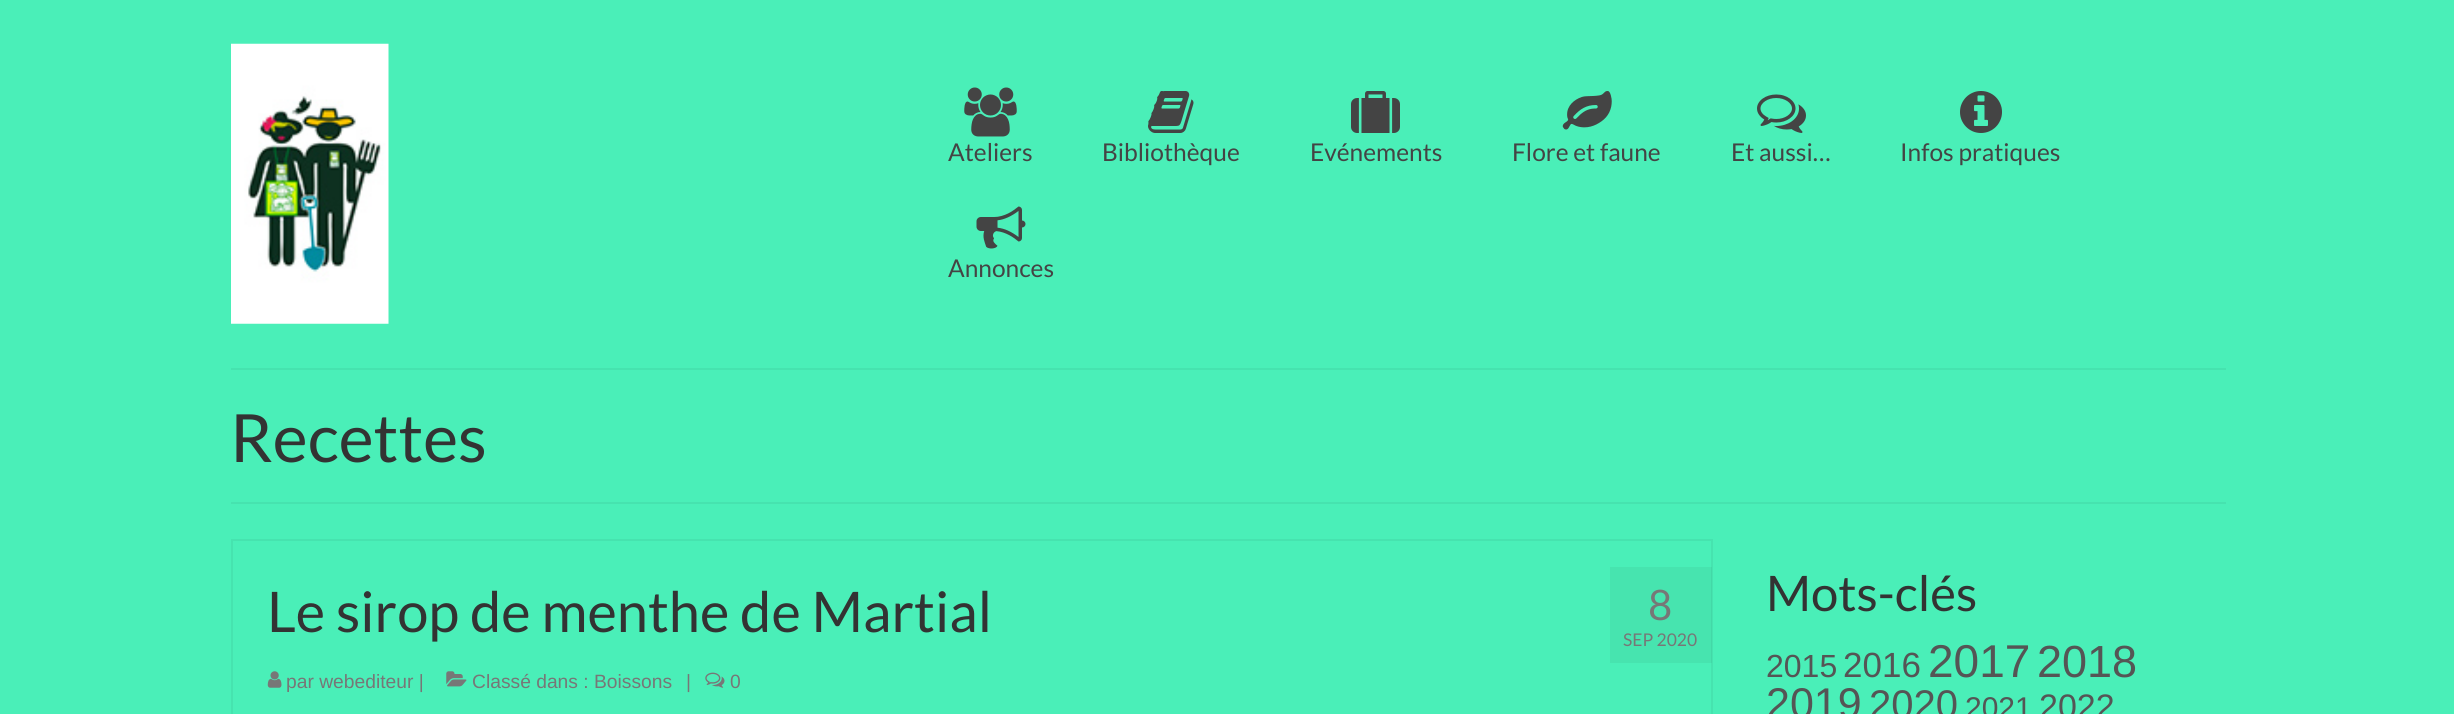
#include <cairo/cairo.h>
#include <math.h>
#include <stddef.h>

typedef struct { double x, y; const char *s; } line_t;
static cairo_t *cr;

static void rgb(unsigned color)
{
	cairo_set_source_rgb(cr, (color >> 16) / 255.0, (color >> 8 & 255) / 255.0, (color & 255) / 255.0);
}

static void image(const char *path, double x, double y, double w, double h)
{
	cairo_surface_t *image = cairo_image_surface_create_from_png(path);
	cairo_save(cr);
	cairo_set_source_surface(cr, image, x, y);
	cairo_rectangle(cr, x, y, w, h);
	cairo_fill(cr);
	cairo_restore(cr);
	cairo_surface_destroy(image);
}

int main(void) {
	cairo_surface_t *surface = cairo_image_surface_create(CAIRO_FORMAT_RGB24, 2454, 714);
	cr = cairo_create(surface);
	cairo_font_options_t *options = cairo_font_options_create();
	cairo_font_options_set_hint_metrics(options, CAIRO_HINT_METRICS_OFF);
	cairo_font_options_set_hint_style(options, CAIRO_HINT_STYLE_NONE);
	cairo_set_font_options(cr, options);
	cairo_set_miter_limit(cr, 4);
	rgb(0x4aefb8);
	cairo_paint(cr);
	image("img/1.png", 231, 43, 158, 281);
	image("img/2.png", 964, 87, 53, 50);
	image("img/3.png", 1148, 91, 46, 42);
	image("img/4.png", 1351, 91, 49, 42);
	image("img/5.png", 1562, 91, 50, 39);
	image("img/6.png", 1757, 94, 49, 39);
	image("img/7.png", 1960, 91, 42, 42);
	image("img/8.png", 976, 206, 50, 43);
	rgb(0x46e3af);
	cairo_rectangle(cr, 231, 368, 1995, 2);
	cairo_fill(cr);
	cairo_rectangle(cr, 231, 502, 1995, 2);
	cairo_fill(cr);
	cairo_rectangle(cr, 232, 540, 1480, 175);
	cairo_stroke(cr);
	image("img/9.png", 267, 671, 15, 17);
	image("img/10.png", 446, 671, 21, 16);
	image("img/11.png", 705, 672, 20, 16);
	cairo_set_source_rgba(cr, 0, 0, 0, 0.05);
	cairo_rectangle(cr, 1610, 567, 102, 96);
	cairo_fill(cr);
	cairo_select_font_face(cr, "Lato", CAIRO_FONT_SLANT_NORMAL, CAIRO_FONT_WEIGHT_NORMAL);
	cairo_set_font_size(cr, 24.5);
	rgb(0x444444);
	{
		static const line_t items[] = {
			{948, 161, "Ateliers"},
			{1102, 161, "Bibliothèque"},
			{1310, 161, "Evénements"},
			{1512, 161, "Flore et faune"},
			{1731, 161, "Et aussi…"},
			{1900, 161, "Infos pratiques"},
			{948, 277, "Annonces"},
		};
		for (size_t i = 0; i < sizeof items / sizeof *items; i++) {
			cairo_move_to(cr, items[i].x, items[i].y);
			cairo_show_text(cr, items[i].s);
		}
	}
	cairo_set_font_size(cr, 66.5);
	rgb(0x333333);
	cairo_move_to(cr, 230, 462);
	cairo_show_text(cr, "Recettes");
	cairo_set_font_size(cr, 56);
	cairo_move_to(cr, 267, 632);
	cairo_show_text(cr, "Le sirop de menthe de Martial");
	cairo_select_font_face(cr, "Liberation Sans", CAIRO_FONT_SLANT_NORMAL, CAIRO_FONT_WEIGHT_NORMAL);
	cairo_set_font_size(cr, 19.25);
	rgb(0x777777);
	{
		static const line_t items[] = {
			{286, 688, "par webediteur |"},
			{472, 688, "Classé dans : Boissons"},
			{686, 688, "|"},
			{730, 688, "0"},
		};
		for (size_t i = 0; i < sizeof items / sizeof *items; i++) {
			cairo_move_to(cr, items[i].x, items[i].y);
			cairo_show_text(cr, items[i].s);
		}
	}
	cairo_select_font_face(cr, "Lato", CAIRO_FONT_SLANT_NORMAL, CAIRO_FONT_WEIGHT_NORMAL);
	cairo_set_font_size(cr, 42);
	cairo_move_to(cr, 1648, 620);
	cairo_show_text(cr, "8");
	cairo_set_font_size(cr, 17.5);
	cairo_move_to(cr, 1623, 646);
	cairo_show_text(cr, "SEP 2020");
	cairo_set_font_size(cr, 49);
	rgb(0x333333);
	cairo_move_to(cr, 1766, 611);
	cairo_show_text(cr, "Mots-clés");
	cairo_select_font_face(cr, "Liberation Sans", CAIRO_FONT_SLANT_NORMAL, CAIRO_FONT_WEIGHT_NORMAL);
	cairo_set_font_size(cr, 32);
	rgb(0x555555);
	cairo_move_to(cr, 1766, 677);
	cairo_show_text(cr, "2015");
	cairo_set_font_size(cr, 35);
	cairo_move_to(cr, 1843, 677);
	cairo_show_text(cr, "2016");
	cairo_set_font_size(cr, 46);
	cairo_move_to(cr, 1928, 677);
	cairo_show_text(cr, "2017");
	cairo_set_font_size(cr, 45);
	cairo_move_to(cr, 2037, 677);
	cairo_show_text(cr, "2018");
	cairo_set_font_size(cr, 43);
	cairo_move_to(cr, 1766, 718);
	cairo_show_text(cr, "2019");
	cairo_set_font_size(cr, 40);
	cairo_move_to(cr, 1869, 718);
	cairo_show_text(cr, "2020");
	cairo_set_font_size(cr, 30);
	cairo_move_to(cr, 1965, 718);
	cairo_show_text(cr, "2021");
	cairo_set_font_size(cr, 34);
	cairo_move_to(cr, 2039, 718);
	cairo_show_text(cr, "2022");
	cairo_surface_write_to_png(surface, "page.png");
	cairo_font_options_destroy(options);
	cairo_destroy(cr);
	cairo_surface_destroy(surface);
	return 0;
}
